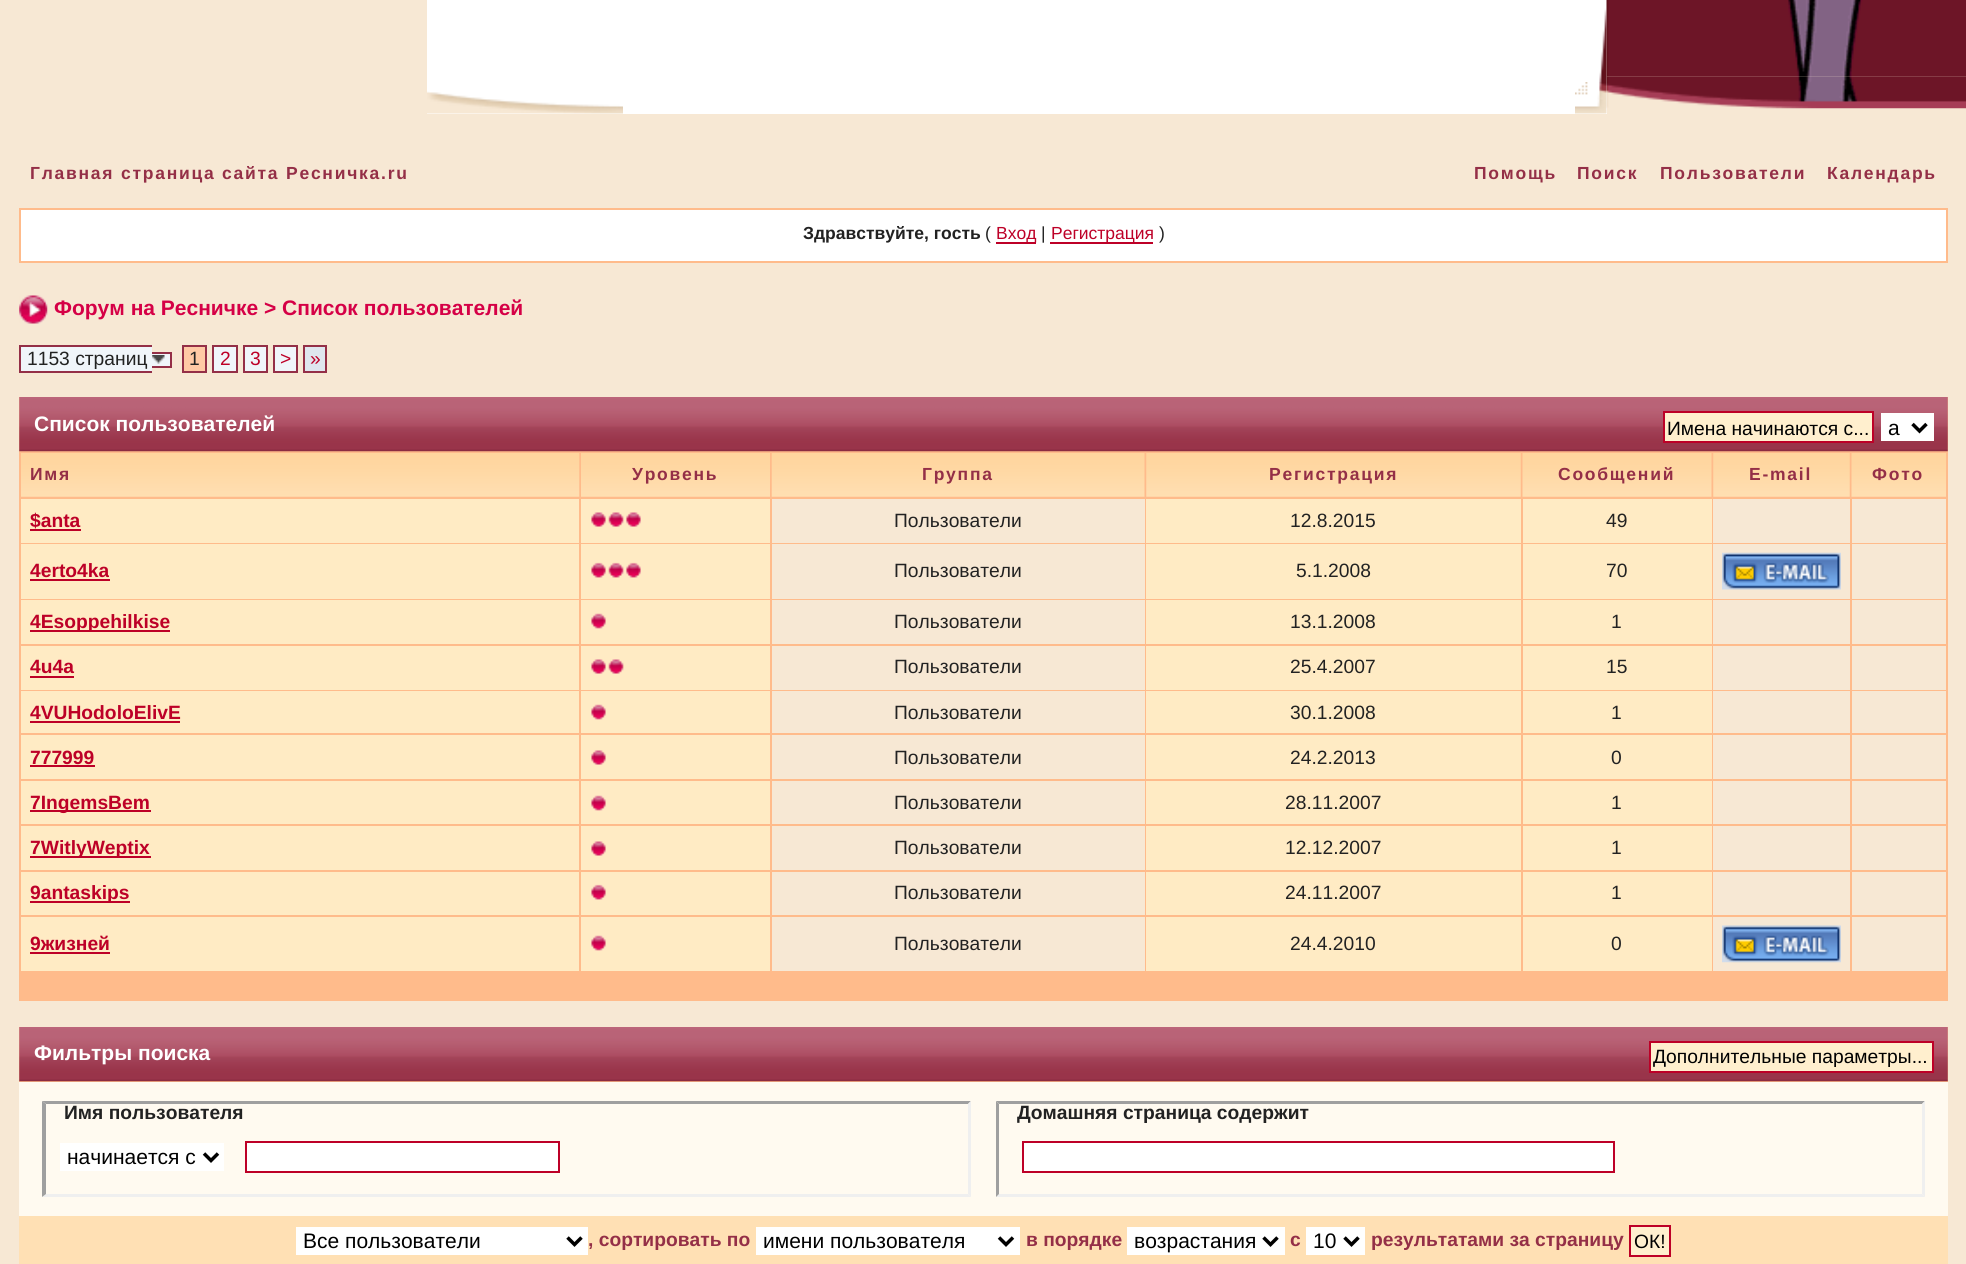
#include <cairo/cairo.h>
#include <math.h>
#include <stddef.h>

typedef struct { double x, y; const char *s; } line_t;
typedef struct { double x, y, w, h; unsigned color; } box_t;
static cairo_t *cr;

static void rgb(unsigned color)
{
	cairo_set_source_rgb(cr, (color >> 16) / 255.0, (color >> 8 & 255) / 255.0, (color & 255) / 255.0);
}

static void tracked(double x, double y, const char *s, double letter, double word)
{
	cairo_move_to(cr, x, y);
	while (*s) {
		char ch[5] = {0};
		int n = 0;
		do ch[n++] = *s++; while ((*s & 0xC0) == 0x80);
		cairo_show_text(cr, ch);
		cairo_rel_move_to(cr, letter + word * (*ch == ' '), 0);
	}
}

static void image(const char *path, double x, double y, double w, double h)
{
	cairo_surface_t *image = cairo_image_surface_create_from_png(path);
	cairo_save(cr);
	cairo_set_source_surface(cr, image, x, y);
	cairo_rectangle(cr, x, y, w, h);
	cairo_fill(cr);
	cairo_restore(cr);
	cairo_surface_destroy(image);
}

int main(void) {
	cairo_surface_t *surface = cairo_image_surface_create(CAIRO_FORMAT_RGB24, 1966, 1264);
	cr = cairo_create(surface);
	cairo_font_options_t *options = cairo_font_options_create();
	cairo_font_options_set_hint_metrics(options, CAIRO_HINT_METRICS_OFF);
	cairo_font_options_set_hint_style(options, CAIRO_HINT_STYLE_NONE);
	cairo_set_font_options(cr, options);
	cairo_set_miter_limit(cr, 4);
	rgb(0xf7e8d4);
	cairo_paint(cr);
	rgb(0xffffff);
	cairo_rectangle(cr, 427, 0, 1180, 114);
	cairo_fill(cr);
	image("img/1.png", 1599, 8, 8, 74);
	image("img/2.png", 427, 91, 196, 23);
	image("img/3.png", 1575, 82, 32, 32);
	image("img/4.png", 1606, 0, 360, 77);
	image("img/5.png", 1606, 76, 360, 33);
	cairo_rectangle(cr, 20, 209, 1927, 53);
	cairo_fill_preserve(cr);
	rgb(0xffbb8b);
	cairo_stroke(cr);
	rgb(0xbd0027);
	cairo_rectangle(cr, 996, 242, 40, 2);
	cairo_fill(cr);
	cairo_rectangle(cr, 1050, 242, 103, 2);
	cairo_fill(cr);
	image("img/6.png", 19, 295, 29, 29);
	{
		static const box_t items[] = {
			{21, 347, 131, 24, 0xf0f5fa},
			{19, 345, 133, 2, 0x942f47},
			{19, 371, 133, 2, 0x942f47},
			{19, 345, 2, 28, 0x942f47},
			{152, 354, 18, 12, 0xf0f5fa},
			{152, 352, 20, 2, 0x942f47},
			{170, 352, 2, 16, 0x942f47},
			{152, 366, 20, 2, 0x942f47},
		};
		for (size_t i = 0; i < sizeof items / sizeof *items; i++) {
			rgb(items[i].color);
			cairo_rectangle(cr, items[i].x, items[i].y, items[i].w, items[i].h);
			cairo_fill(cr);
		}
	}
	image("img/7.png", 152, 355, 13, 9);
	rgb(0xffc9a5);
	cairo_rectangle(cr, 183, 346, 23, 26);
	cairo_fill_preserve(cr);
	rgb(0x942f47);
	cairo_stroke(cr);
	rgb(0xf0f5fa);
	cairo_rectangle(cr, 213, 346, 24, 26);
	cairo_fill_preserve(cr);
	rgb(0x942f47);
	cairo_stroke(cr);
	rgb(0xf0f5fa);
	cairo_rectangle(cr, 244, 346, 23, 26);
	cairo_fill_preserve(cr);
	rgb(0x942f47);
	cairo_stroke(cr);
	rgb(0xf0f5fa);
	cairo_rectangle(cr, 274, 346, 23, 26);
	cairo_fill_preserve(cr);
	rgb(0x942f47);
	cairo_stroke(cr);
	rgb(0xdfe6ef);
	cairo_rectangle(cr, 304, 346, 22, 26);
	cairo_fill_preserve(cr);
	rgb(0x942f47);
	cairo_stroke(cr);
	rgb(0xffbb8b);
	cairo_rectangle(cr, 19, 397, 1929, 604);
	cairo_fill(cr);
	image("img/8.png", 19, 397, 1929, 55);
	rgb(0xffefce);
	cairo_rectangle(cr, 1664, 412, 209, 30);
	cairo_fill_preserve(cr);
	rgb(0xbd0027);
	cairo_stroke(cr);
	rgb(0xffffff);
	cairo_rectangle(cr, 1881, 413, 53, 28);
	cairo_fill(cr);
	cairo_new_path(cr);
	cairo_move_to(cr, 1912.5, 424);
	cairo_line_to(cr, 1919.5, 431);
	cairo_line_to(cr, 1926.5, 424);
	rgb(0x000000);
	cairo_set_line_width(cr, 3.5);
	cairo_stroke(cr);
	image("img/9.png", 21, 453, 559, 44);
	image("img/10.png", 581, 453, 189, 44);
	image("img/11.png", 771, 453, 374, 44);
	image("img/12.png", 1146, 453, 375, 44);
	image("img/13.png", 1522, 453, 190, 44);
	image("img/14.png", 1713, 453, 137, 44);
	image("img/15.png", 1851, 453, 95, 44);
	{
		static const box_t items[] = {
			{21, 499, 558, 44, 0xffebc4},
			{30, 529, 51, 2, 0xbd0027},
			{581, 499, 189, 44, 0xffebc4},
		};
		for (size_t i = 0; i < sizeof items / sizeof *items; i++) {
			rgb(items[i].color);
			cairo_rectangle(cr, items[i].x, items[i].y, items[i].w, items[i].h);
			cairo_fill(cr);
		}
	}
	image("img/16.png", 591, 512, 15, 15);
	image("img/17.png", 608, 512, 16, 15);
	image("img/16.png", 626, 512, 15, 15);
	{
		static const box_t items[] = {
			{772, 499, 373, 44, 0xf7e8d4},
			{1146, 499, 375, 44, 0xffebc4},
			{1523, 499, 189, 44, 0xffebc4},
			{1713, 499, 137, 44, 0xf7e8d4},
			{1852, 499, 94, 44, 0xf7e8d4},
			{21, 544, 558, 55, 0xffebc4},
			{30, 579, 80, 2, 0xbd0027},
			{581, 544, 189, 55, 0xffebc4},
		};
		for (size_t i = 0; i < sizeof items / sizeof *items; i++) {
			rgb(items[i].color);
			cairo_rectangle(cr, items[i].x, items[i].y, items[i].w, items[i].h);
			cairo_fill(cr);
		}
	}
	image("img/18.png", 591, 562, 15, 16);
	image("img/19.png", 608, 562, 16, 16);
	image("img/18.png", 626, 562, 15, 16);
	{
		static const box_t items[] = {
			{772, 544, 373, 55, 0xf7e8d4},
			{1146, 544, 375, 55, 0xffebc4},
			{1523, 544, 189, 55, 0xffebc4},
			{1713, 544, 137, 55, 0xf7e8d4},
		};
		for (size_t i = 0; i < sizeof items / sizeof *items; i++) {
			rgb(items[i].color);
			cairo_rectangle(cr, items[i].x, items[i].y, items[i].w, items[i].h);
			cairo_fill(cr);
		}
	}
	image("img/20.png", 1722, 552, 119, 38);
	{
		static const box_t items[] = {
			{1852, 544, 94, 55, 0xf7e8d4},
			{21, 600, 558, 44, 0xffebc4},
			{30, 630, 140, 2, 0xbd0027},
			{581, 600, 189, 44, 0xffebc4},
		};
		for (size_t i = 0; i < sizeof items / sizeof *items; i++) {
			rgb(items[i].color);
			cairo_rectangle(cr, items[i].x, items[i].y, items[i].w, items[i].h);
			cairo_fill(cr);
		}
	}
	image("img/21.png", 591, 613, 15, 16);
	{
		static const box_t items[] = {
			{772, 600, 373, 44, 0xf7e8d4},
			{1146, 600, 375, 44, 0xffebc4},
			{1523, 600, 189, 44, 0xffebc4},
			{1713, 600, 137, 44, 0xf7e8d4},
			{1852, 600, 94, 44, 0xf7e8d4},
			{21, 646, 558, 44, 0xffebc4},
			{30, 676, 44, 2, 0xbd0027},
			{581, 646, 189, 44, 0xffebc4},
		};
		for (size_t i = 0; i < sizeof items / sizeof *items; i++) {
			rgb(items[i].color);
			cairo_rectangle(cr, items[i].x, items[i].y, items[i].w, items[i].h);
			cairo_fill(cr);
		}
	}
	image("img/16.png", 591, 659, 15, 15);
	image("img/17.png", 608, 659, 16, 15);
	{
		static const box_t items[] = {
			{772, 646, 373, 44, 0xf7e8d4},
			{1146, 646, 375, 44, 0xffebc4},
			{1523, 646, 189, 44, 0xffebc4},
			{1713, 646, 137, 44, 0xf7e8d4},
			{1852, 646, 94, 44, 0xf7e8d4},
			{21, 691, 558, 42, 0xffebc4},
			{30, 721, 150, 2, 0xbd0027},
			{581, 691, 189, 42, 0xffebc4},
		};
		for (size_t i = 0; i < sizeof items / sizeof *items; i++) {
			rgb(items[i].color);
			cairo_rectangle(cr, items[i].x, items[i].y, items[i].w, items[i].h);
			cairo_fill(cr);
		}
	}
	image("img/21.png", 591, 704, 15, 16);
	{
		static const box_t items[] = {
			{772, 691, 373, 42, 0xf7e8d4},
			{1146, 691, 375, 42, 0xffebc4},
			{1523, 691, 189, 42, 0xffebc4},
			{1713, 691, 137, 42, 0xf7e8d4},
			{1852, 691, 94, 42, 0xf7e8d4},
			{21, 735, 558, 44, 0xffebc4},
			{30, 765, 65, 2, 0xbd0027},
			{581, 735, 189, 44, 0xffebc4},
		};
		for (size_t i = 0; i < sizeof items / sizeof *items; i++) {
			rgb(items[i].color);
			cairo_rectangle(cr, items[i].x, items[i].y, items[i].w, items[i].h);
			cairo_fill(cr);
		}
	}
	image("img/16.png", 591, 750, 15, 15);
	{
		static const box_t items[] = {
			{772, 735, 373, 44, 0xf7e8d4},
			{1146, 735, 375, 44, 0xffebc4},
			{1523, 735, 189, 44, 0xffebc4},
			{1713, 735, 137, 44, 0xf7e8d4},
			{1852, 735, 94, 44, 0xf7e8d4},
			{21, 781, 558, 43, 0xffebc4},
			{30, 810, 121, 2, 0xbd0027},
			{581, 781, 189, 43, 0xffebc4},
		};
		for (size_t i = 0; i < sizeof items / sizeof *items; i++) {
			rgb(items[i].color);
			cairo_rectangle(cr, items[i].x, items[i].y, items[i].w, items[i].h);
			cairo_fill(cr);
		}
	}
	image("img/21.png", 591, 795, 15, 16);
	{
		static const box_t items[] = {
			{772, 781, 373, 43, 0xf7e8d4},
			{1146, 781, 375, 43, 0xffebc4},
			{1523, 781, 189, 43, 0xffebc4},
			{1713, 781, 137, 43, 0xf7e8d4},
			{1852, 781, 94, 43, 0xf7e8d4},
			{21, 826, 558, 44, 0xffebc4},
			{30, 856, 121, 2, 0xbd0027},
			{581, 826, 189, 44, 0xffebc4},
		};
		for (size_t i = 0; i < sizeof items / sizeof *items; i++) {
			rgb(items[i].color);
			cairo_rectangle(cr, items[i].x, items[i].y, items[i].w, items[i].h);
			cairo_fill(cr);
		}
	}
	image("img/16.png", 591, 841, 15, 15);
	{
		static const box_t items[] = {
			{772, 826, 373, 44, 0xf7e8d4},
			{1146, 826, 375, 44, 0xffebc4},
			{1523, 826, 189, 44, 0xffebc4},
			{1713, 826, 137, 44, 0xf7e8d4},
			{1852, 826, 94, 44, 0xf7e8d4},
			{21, 872, 558, 43, 0xffebc4},
			{30, 901, 100, 2, 0xbd0027},
			{581, 872, 189, 43, 0xffebc4},
		};
		for (size_t i = 0; i < sizeof items / sizeof *items; i++) {
			rgb(items[i].color);
			cairo_rectangle(cr, items[i].x, items[i].y, items[i].w, items[i].h);
			cairo_fill(cr);
		}
	}
	image("img/18.png", 591, 884, 15, 16);
	{
		static const box_t items[] = {
			{772, 872, 373, 43, 0xf7e8d4},
			{1146, 872, 375, 43, 0xffebc4},
			{1523, 872, 189, 43, 0xffebc4},
			{1713, 872, 137, 43, 0xf7e8d4},
			{1852, 872, 94, 43, 0xf7e8d4},
			{21, 917, 558, 54, 0xffebc4},
			{30, 952, 80, 2, 0xbd0027},
			{581, 917, 189, 54, 0xffebc4},
		};
		for (size_t i = 0; i < sizeof items / sizeof *items; i++) {
			rgb(items[i].color);
			cairo_rectangle(cr, items[i].x, items[i].y, items[i].w, items[i].h);
			cairo_fill(cr);
		}
	}
	image("img/21.png", 591, 935, 15, 16);
	{
		static const box_t items[] = {
			{772, 917, 373, 54, 0xf7e8d4},
			{1146, 917, 375, 54, 0xffebc4},
			{1523, 917, 189, 54, 0xffebc4},
			{1713, 917, 137, 54, 0xf7e8d4},
		};
		for (size_t i = 0; i < sizeof items / sizeof *items; i++) {
			rgb(items[i].color);
			cairo_rectangle(cr, items[i].x, items[i].y, items[i].w, items[i].h);
			cairo_fill(cr);
		}
	}
	image("img/22.png", 1722, 925, 119, 38);
	cairo_rectangle(cr, 1852, 917, 94, 54);
	cairo_fill(cr);
	rgb(0xffbb8b);
	cairo_rectangle(cr, 19, 1027, 1929, 55);
	cairo_fill(cr);
	image("img/23.png", 19, 1027, 1929, 55);
	rgb(0xffefce);
	cairo_rectangle(cr, 1650, 1042, 283, 30);
	cairo_fill_preserve(cr);
	rgb(0xbd0027);
	cairo_set_line_width(cr, 2);
	cairo_stroke(cr);
	rgb(0xfffaf0);
	cairo_rectangle(cr, 19, 1082, 1929, 134);
	cairo_fill(cr);
	rgb(0x9f9f9f);
	cairo_new_path(cr);
	cairo_move_to(cr, 42, 1101);
	cairo_line_to(cr, 971, 1101);
	cairo_line_to(cr, 968, 1104);
	cairo_line_to(cr, 46, 1104);
	cairo_close_path(cr);
	cairo_fill(cr);
	rgb(0xefefef);
	cairo_new_path(cr);
	cairo_move_to(cr, 971, 1101);
	cairo_line_to(cr, 971, 1197);
	cairo_line_to(cr, 968, 1194);
	cairo_line_to(cr, 968, 1104);
	cairo_close_path(cr);
	cairo_fill(cr);
	cairo_new_path(cr);
	cairo_move_to(cr, 971, 1197);
	cairo_line_to(cr, 42, 1197);
	cairo_line_to(cr, 46, 1194);
	cairo_line_to(cr, 968, 1194);
	cairo_close_path(cr);
	cairo_fill(cr);
	rgb(0x9f9f9f);
	cairo_new_path(cr);
	cairo_move_to(cr, 42, 1197);
	cairo_line_to(cr, 42, 1101);
	cairo_line_to(cr, 46, 1104);
	cairo_line_to(cr, 46, 1194);
	cairo_close_path(cr);
	cairo_fill(cr);
	rgb(0xffffff);
	cairo_rectangle(cr, 60, 1143, 164, 28);
	cairo_fill(cr);
	cairo_new_path(cr);
	cairo_move_to(cr, 204, 1153.5);
	cairo_line_to(cr, 211, 1160.5);
	cairo_line_to(cr, 218, 1153.5);
	rgb(0x000000);
	cairo_set_line_width(cr, 3.5);
	cairo_stroke(cr);
	rgb(0xffffff);
	cairo_rectangle(cr, 246, 1142, 313, 30);
	cairo_fill_preserve(cr);
	rgb(0xbd0027);
	cairo_set_line_width(cr, 2);
	cairo_stroke(cr);
	rgb(0x9f9f9f);
	cairo_new_path(cr);
	cairo_move_to(cr, 996, 1101);
	cairo_line_to(cr, 1925, 1101);
	cairo_line_to(cr, 1922, 1104);
	cairo_line_to(cr, 999, 1104);
	cairo_close_path(cr);
	cairo_fill(cr);
	rgb(0xefefef);
	cairo_new_path(cr);
	cairo_move_to(cr, 1925, 1101);
	cairo_line_to(cr, 1925, 1197);
	cairo_line_to(cr, 1922, 1194);
	cairo_line_to(cr, 1922, 1104);
	cairo_close_path(cr);
	cairo_fill(cr);
	cairo_new_path(cr);
	cairo_move_to(cr, 1925, 1197);
	cairo_line_to(cr, 996, 1197);
	cairo_line_to(cr, 999, 1194);
	cairo_line_to(cr, 1922, 1194);
	cairo_close_path(cr);
	cairo_fill(cr);
	rgb(0x9f9f9f);
	cairo_new_path(cr);
	cairo_move_to(cr, 996, 1197);
	cairo_line_to(cr, 996, 1101);
	cairo_line_to(cr, 999, 1104);
	cairo_line_to(cr, 999, 1194);
	cairo_close_path(cr);
	cairo_fill(cr);
	rgb(0xffffff);
	cairo_rectangle(cr, 1023, 1142, 591, 30);
	cairo_fill_preserve(cr);
	rgb(0xbd0027);
	cairo_stroke(cr);
	rgb(0xffe0b4);
	cairo_rectangle(cr, 19, 1216, 1929, 48);
	cairo_fill(cr);
	rgb(0xffffff);
	cairo_rectangle(cr, 296, 1227, 292, 28);
	cairo_fill(cr);
	cairo_new_path(cr);
	cairo_move_to(cr, 567.5, 1237.5);
	cairo_line_to(cr, 574.5, 1244.5);
	cairo_line_to(cr, 581.5, 1237.5);
	rgb(0x000000);
	cairo_set_line_width(cr, 3.5);
	cairo_stroke(cr);
	rgb(0xffffff);
	cairo_rectangle(cr, 756, 1227, 264, 28);
	cairo_fill(cr);
	cairo_new_path(cr);
	cairo_move_to(cr, 999, 1237.5);
	cairo_line_to(cr, 1006, 1244.5);
	cairo_line_to(cr, 1013, 1237.5);
	rgb(0x000000);
	cairo_stroke(cr);
	rgb(0xffffff);
	cairo_rectangle(cr, 1127, 1227, 158, 28);
	cairo_fill(cr);
	cairo_new_path(cr);
	cairo_move_to(cr, 1263.5, 1237.5);
	cairo_line_to(cr, 1270.5, 1244.5);
	cairo_line_to(cr, 1277.5, 1237.5);
	rgb(0x000000);
	cairo_stroke(cr);
	rgb(0xffffff);
	cairo_rectangle(cr, 1306, 1227, 59, 28);
	cairo_fill(cr);
	cairo_new_path(cr);
	cairo_move_to(cr, 1344.5, 1237.5);
	cairo_line_to(cr, 1351.5, 1244.5);
	cairo_line_to(cr, 1358.5, 1237.5);
	rgb(0x000000);
	cairo_stroke(cr);
	rgb(0xffefce);
	cairo_rectangle(cr, 1630, 1226, 40, 30);
	cairo_fill_preserve(cr);
	rgb(0xbd0027);
	cairo_set_line_width(cr, 2);
	cairo_stroke(cr);
	cairo_select_font_face(cr, "Liberation Sans", CAIRO_FONT_SLANT_NORMAL, CAIRO_FONT_WEIGHT_BOLD);
	cairo_set_font_size(cr, 17.5);
	rgb(0x942f47);
	{
		static const line_t items[] = {
			{30, 179, "Главная страница сайта Ресничка.ru"},
			{1474, 179, "Помощь"},
			{1577, 179, "Поиск"},
			{1660, 179, "Пользователи"},
			{1827, 179, "Календарь"},
		};
		for (size_t i = 0; i < sizeof items / sizeof *items; i++) {
			tracked(items[i].x, items[i].y, items[i].s, 1.75, 0);
		}
	}
	rgb(0x222222);
	cairo_move_to(cr, 803, 239);
	cairo_show_text(cr, "Здравствуйте, гость");
	cairo_select_font_face(cr, "Liberation Sans", CAIRO_FONT_SLANT_NORMAL, CAIRO_FONT_WEIGHT_NORMAL);
	cairo_move_to(cr, 985, 239);
	cairo_show_text(cr, "(");
	rgb(0xbd0027);
	cairo_move_to(cr, 996, 239);
	cairo_show_text(cr, "Вход");
	rgb(0x222222);
	cairo_move_to(cr, 1041, 239);
	cairo_show_text(cr, "|");
	rgb(0xbd0027);
	cairo_move_to(cr, 1051, 239);
	cairo_show_text(cr, "Регистрация");
	rgb(0x222222);
	cairo_move_to(cr, 1159, 239);
	cairo_show_text(cr, ")");
	cairo_select_font_face(cr, "Liberation Sans", CAIRO_FONT_SLANT_NORMAL, CAIRO_FONT_WEIGHT_BOLD);
	cairo_set_font_size(cr, 21);
	rgb(0xd50046);
	cairo_move_to(cr, 54, 315);
	cairo_show_text(cr, "Форум на Ресничке > Список пользователей");
	cairo_select_font_face(cr, "Liberation Sans", CAIRO_FONT_SLANT_NORMAL, CAIRO_FONT_WEIGHT_NORMAL);
	cairo_set_font_size(cr, 19.25);
	rgb(0x222222);
	cairo_move_to(cr, 27, 365);
	cairo_show_text(cr, "1153 страниц");
	cairo_move_to(cr, 189, 365);
	cairo_show_text(cr, "1");
	rgb(0xbd0027);
	{
		static const line_t items[] = {
			{220, 365, "2"},
			{250, 365, "3"},
			{280, 365, ">"},
			{310, 365, "»"},
		};
		for (size_t i = 0; i < sizeof items / sizeof *items; i++) {
			cairo_move_to(cr, items[i].x, items[i].y);
			cairo_show_text(cr, items[i].s);
		}
	}
	cairo_select_font_face(cr, "Liberation Sans", CAIRO_FONT_SLANT_NORMAL, CAIRO_FONT_WEIGHT_BOLD);
	cairo_set_font_size(cr, 21);
	rgb(0xffffff);
	cairo_move_to(cr, 34, 431);
	cairo_show_text(cr, "Список пользователей");
	cairo_select_font_face(cr, "Liberation Sans", CAIRO_FONT_SLANT_NORMAL, CAIRO_FONT_WEIGHT_NORMAL);
	cairo_set_font_size(cr, 19.25);
	rgb(0x000000);
	cairo_move_to(cr, 1667, 435);
	cairo_show_text(cr, "Имена начинаются с...");
	cairo_set_font_size(cr, 21);
	cairo_move_to(cr, 1888, 435);
	cairo_show_text(cr, "a");
	cairo_select_font_face(cr, "Liberation Sans", CAIRO_FONT_SLANT_NORMAL, CAIRO_FONT_WEIGHT_BOLD);
	cairo_set_font_size(cr, 17.5);
	rgb(0x942f47);
	{
		static const line_t items[] = {
			{30, 480, "Имя"},
			{632, 480, "Уровень"},
			{922, 480, "Группа"},
			{1269, 480, "Регистрация"},
			{1558, 480, "Сообщений"},
			{1749, 480, "E-mail"},
			{1872, 480, "Фото"},
		};
		for (size_t i = 0; i < sizeof items / sizeof *items; i++) {
			tracked(items[i].x, items[i].y, items[i].s, 1.75, 0);
		}
	}
	cairo_set_font_size(cr, 19.25);
	rgb(0xbd0027);
	cairo_move_to(cr, 30, 527);
	cairo_show_text(cr, "$anta");
	cairo_select_font_face(cr, "Liberation Sans", CAIRO_FONT_SLANT_NORMAL, CAIRO_FONT_WEIGHT_NORMAL);
	rgb(0x222222);
	{
		static const line_t items[] = {
			{894, 527, "Пользователи"},
			{1290, 527, "12.8.2015"},
			{1606, 527, "49"},
		};
		for (size_t i = 0; i < sizeof items / sizeof *items; i++) {
			cairo_move_to(cr, items[i].x, items[i].y);
			cairo_show_text(cr, items[i].s);
		}
	}
	cairo_select_font_face(cr, "Liberation Sans", CAIRO_FONT_SLANT_NORMAL, CAIRO_FONT_WEIGHT_BOLD);
	rgb(0xbd0027);
	cairo_move_to(cr, 30, 577);
	cairo_show_text(cr, "4erto4ka");
	cairo_select_font_face(cr, "Liberation Sans", CAIRO_FONT_SLANT_NORMAL, CAIRO_FONT_WEIGHT_NORMAL);
	rgb(0x222222);
	{
		static const line_t items[] = {
			{894, 577, "Пользователи"},
			{1296, 577, "5.1.2008"},
			{1606, 577, "70"},
		};
		for (size_t i = 0; i < sizeof items / sizeof *items; i++) {
			cairo_move_to(cr, items[i].x, items[i].y);
			cairo_show_text(cr, items[i].s);
		}
	}
	cairo_select_font_face(cr, "Liberation Sans", CAIRO_FONT_SLANT_NORMAL, CAIRO_FONT_WEIGHT_BOLD);
	rgb(0xbd0027);
	cairo_move_to(cr, 30, 628);
	cairo_show_text(cr, "4Esoppehilkise");
	cairo_select_font_face(cr, "Liberation Sans", CAIRO_FONT_SLANT_NORMAL, CAIRO_FONT_WEIGHT_NORMAL);
	rgb(0x222222);
	{
		static const line_t items[] = {
			{894, 628, "Пользователи"},
			{1290, 628, "13.1.2008"},
			{1611, 628, "1"},
		};
		for (size_t i = 0; i < sizeof items / sizeof *items; i++) {
			cairo_move_to(cr, items[i].x, items[i].y);
			cairo_show_text(cr, items[i].s);
		}
	}
	cairo_select_font_face(cr, "Liberation Sans", CAIRO_FONT_SLANT_NORMAL, CAIRO_FONT_WEIGHT_BOLD);
	rgb(0xbd0027);
	cairo_move_to(cr, 30, 673);
	cairo_show_text(cr, "4u4a");
	cairo_select_font_face(cr, "Liberation Sans", CAIRO_FONT_SLANT_NORMAL, CAIRO_FONT_WEIGHT_NORMAL);
	rgb(0x222222);
	{
		static const line_t items[] = {
			{894, 673, "Пользователи"},
			{1290, 673, "25.4.2007"},
			{1606, 673, "15"},
		};
		for (size_t i = 0; i < sizeof items / sizeof *items; i++) {
			cairo_move_to(cr, items[i].x, items[i].y);
			cairo_show_text(cr, items[i].s);
		}
	}
	cairo_select_font_face(cr, "Liberation Sans", CAIRO_FONT_SLANT_NORMAL, CAIRO_FONT_WEIGHT_BOLD);
	rgb(0xbd0027);
	cairo_move_to(cr, 30, 719);
	cairo_show_text(cr, "4VUHodoloElivE");
	cairo_select_font_face(cr, "Liberation Sans", CAIRO_FONT_SLANT_NORMAL, CAIRO_FONT_WEIGHT_NORMAL);
	rgb(0x222222);
	{
		static const line_t items[] = {
			{894, 719, "Пользователи"},
			{1290, 719, "30.1.2008"},
			{1611, 719, "1"},
		};
		for (size_t i = 0; i < sizeof items / sizeof *items; i++) {
			cairo_move_to(cr, items[i].x, items[i].y);
			cairo_show_text(cr, items[i].s);
		}
	}
	cairo_select_font_face(cr, "Liberation Sans", CAIRO_FONT_SLANT_NORMAL, CAIRO_FONT_WEIGHT_BOLD);
	rgb(0xbd0027);
	cairo_move_to(cr, 30, 764);
	cairo_show_text(cr, "777999");
	cairo_select_font_face(cr, "Liberation Sans", CAIRO_FONT_SLANT_NORMAL, CAIRO_FONT_WEIGHT_NORMAL);
	rgb(0x222222);
	{
		static const line_t items[] = {
			{894, 764, "Пользователи"},
			{1290, 764, "24.2.2013"},
			{1611, 764, "0"},
		};
		for (size_t i = 0; i < sizeof items / sizeof *items; i++) {
			cairo_move_to(cr, items[i].x, items[i].y);
			cairo_show_text(cr, items[i].s);
		}
	}
	cairo_select_font_face(cr, "Liberation Sans", CAIRO_FONT_SLANT_NORMAL, CAIRO_FONT_WEIGHT_BOLD);
	rgb(0xbd0027);
	cairo_move_to(cr, 30, 809);
	cairo_show_text(cr, "7IngemsBem");
	cairo_select_font_face(cr, "Liberation Sans", CAIRO_FONT_SLANT_NORMAL, CAIRO_FONT_WEIGHT_NORMAL);
	rgb(0x222222);
	{
		static const line_t items[] = {
			{894, 809, "Пользователи"},
			{1285, 809, "28.11.2007"},
			{1611, 809, "1"},
		};
		for (size_t i = 0; i < sizeof items / sizeof *items; i++) {
			cairo_move_to(cr, items[i].x, items[i].y);
			cairo_show_text(cr, items[i].s);
		}
	}
	cairo_select_font_face(cr, "Liberation Sans", CAIRO_FONT_SLANT_NORMAL, CAIRO_FONT_WEIGHT_BOLD);
	rgb(0xbd0027);
	cairo_move_to(cr, 30, 854);
	cairo_show_text(cr, "7WitlyWeptix");
	cairo_select_font_face(cr, "Liberation Sans", CAIRO_FONT_SLANT_NORMAL, CAIRO_FONT_WEIGHT_NORMAL);
	rgb(0x222222);
	{
		static const line_t items[] = {
			{894, 854, "Пользователи"},
			{1285, 854, "12.12.2007"},
			{1611, 854, "1"},
		};
		for (size_t i = 0; i < sizeof items / sizeof *items; i++) {
			cairo_move_to(cr, items[i].x, items[i].y);
			cairo_show_text(cr, items[i].s);
		}
	}
	cairo_select_font_face(cr, "Liberation Sans", CAIRO_FONT_SLANT_NORMAL, CAIRO_FONT_WEIGHT_BOLD);
	rgb(0xbd0027);
	cairo_move_to(cr, 30, 899);
	cairo_show_text(cr, "9antaskips");
	cairo_select_font_face(cr, "Liberation Sans", CAIRO_FONT_SLANT_NORMAL, CAIRO_FONT_WEIGHT_NORMAL);
	rgb(0x222222);
	{
		static const line_t items[] = {
			{894, 899, "Пользователи"},
			{1285, 899, "24.11.2007"},
			{1611, 899, "1"},
		};
		for (size_t i = 0; i < sizeof items / sizeof *items; i++) {
			cairo_move_to(cr, items[i].x, items[i].y);
			cairo_show_text(cr, items[i].s);
		}
	}
	cairo_select_font_face(cr, "Liberation Sans", CAIRO_FONT_SLANT_NORMAL, CAIRO_FONT_WEIGHT_BOLD);
	rgb(0xbd0027);
	cairo_move_to(cr, 30, 950);
	cairo_show_text(cr, "9жизней");
	cairo_select_font_face(cr, "Liberation Sans", CAIRO_FONT_SLANT_NORMAL, CAIRO_FONT_WEIGHT_NORMAL);
	rgb(0x222222);
	{
		static const line_t items[] = {
			{894, 950, "Пользователи"},
			{1290, 950, "24.4.2010"},
			{1611, 950, "0"},
		};
		for (size_t i = 0; i < sizeof items / sizeof *items; i++) {
			cairo_move_to(cr, items[i].x, items[i].y);
			cairo_show_text(cr, items[i].s);
		}
	}
	cairo_select_font_face(cr, "Liberation Sans", CAIRO_FONT_SLANT_NORMAL, CAIRO_FONT_WEIGHT_BOLD);
	cairo_set_font_size(cr, 21);
	rgb(0xffffff);
	cairo_move_to(cr, 34, 1060);
	cairo_show_text(cr, "Фильтры поиска");
	cairo_select_font_face(cr, "Liberation Sans", CAIRO_FONT_SLANT_NORMAL, CAIRO_FONT_WEIGHT_NORMAL);
	cairo_set_font_size(cr, 19.25);
	rgb(0x000000);
	cairo_move_to(cr, 1653, 1063);
	cairo_show_text(cr, "Дополнительные параметры...");
	cairo_select_font_face(cr, "Liberation Sans", CAIRO_FONT_SLANT_NORMAL, CAIRO_FONT_WEIGHT_BOLD);
	rgb(0x222222);
	cairo_move_to(cr, 64, 1119);
	cairo_show_text(cr, "Имя пользователя");
	cairo_select_font_face(cr, "Liberation Sans", CAIRO_FONT_SLANT_NORMAL, CAIRO_FONT_WEIGHT_NORMAL);
	cairo_set_font_size(cr, 21);
	rgb(0x000000);
	cairo_move_to(cr, 67, 1164);
	cairo_show_text(cr, "начинается с");
	cairo_select_font_face(cr, "Liberation Sans", CAIRO_FONT_SLANT_NORMAL, CAIRO_FONT_WEIGHT_BOLD);
	cairo_set_font_size(cr, 19.25);
	rgb(0x222222);
	cairo_move_to(cr, 1017, 1119);
	cairo_show_text(cr, "Домашняя страница содержит");
	cairo_select_font_face(cr, "Liberation Sans", CAIRO_FONT_SLANT_NORMAL, CAIRO_FONT_WEIGHT_NORMAL);
	cairo_set_font_size(cr, 21);
	rgb(0x000000);
	cairo_move_to(cr, 303, 1248);
	cairo_show_text(cr, "Все пользователи");
	cairo_select_font_face(cr, "Liberation Sans", CAIRO_FONT_SLANT_NORMAL, CAIRO_FONT_WEIGHT_BOLD);
	cairo_set_font_size(cr, 19.25);
	rgb(0x942f47);
	cairo_move_to(cr, 588, 1246);
	cairo_show_text(cr, ", сортировать по");
	cairo_select_font_face(cr, "Liberation Sans", CAIRO_FONT_SLANT_NORMAL, CAIRO_FONT_WEIGHT_NORMAL);
	cairo_set_font_size(cr, 21);
	rgb(0x000000);
	cairo_move_to(cr, 763, 1248);
	cairo_show_text(cr, "имени пользователя");
	cairo_select_font_face(cr, "Liberation Sans", CAIRO_FONT_SLANT_NORMAL, CAIRO_FONT_WEIGHT_BOLD);
	cairo_set_font_size(cr, 19.25);
	rgb(0x942f47);
	cairo_move_to(cr, 1026, 1246);
	cairo_show_text(cr, "в порядке");
	cairo_select_font_face(cr, "Liberation Sans", CAIRO_FONT_SLANT_NORMAL, CAIRO_FONT_WEIGHT_NORMAL);
	cairo_set_font_size(cr, 21);
	rgb(0x000000);
	cairo_move_to(cr, 1134, 1248);
	cairo_show_text(cr, "возрастания");
	cairo_select_font_face(cr, "Liberation Sans", CAIRO_FONT_SLANT_NORMAL, CAIRO_FONT_WEIGHT_BOLD);
	cairo_set_font_size(cr, 19.25);
	rgb(0x942f47);
	cairo_move_to(cr, 1290, 1246);
	cairo_show_text(cr, "с");
	cairo_select_font_face(cr, "Liberation Sans", CAIRO_FONT_SLANT_NORMAL, CAIRO_FONT_WEIGHT_NORMAL);
	cairo_set_font_size(cr, 21);
	rgb(0x000000);
	cairo_move_to(cr, 1313, 1248);
	cairo_show_text(cr, "10");
	cairo_select_font_face(cr, "Liberation Sans", CAIRO_FONT_SLANT_NORMAL, CAIRO_FONT_WEIGHT_BOLD);
	cairo_set_font_size(cr, 19.25);
	rgb(0x942f47);
	cairo_move_to(cr, 1371, 1246);
	cairo_show_text(cr, "результатами за страницу");
	cairo_select_font_face(cr, "Liberation Sans", CAIRO_FONT_SLANT_NORMAL, CAIRO_FONT_WEIGHT_NORMAL);
	rgb(0x000000);
	cairo_move_to(cr, 1634, 1248);
	cairo_show_text(cr, "ОК!");
	cairo_surface_write_to_png(surface, "page.png");
	cairo_font_options_destroy(options);
	cairo_destroy(cr);
	cairo_surface_destroy(surface);
	return 0;
}
